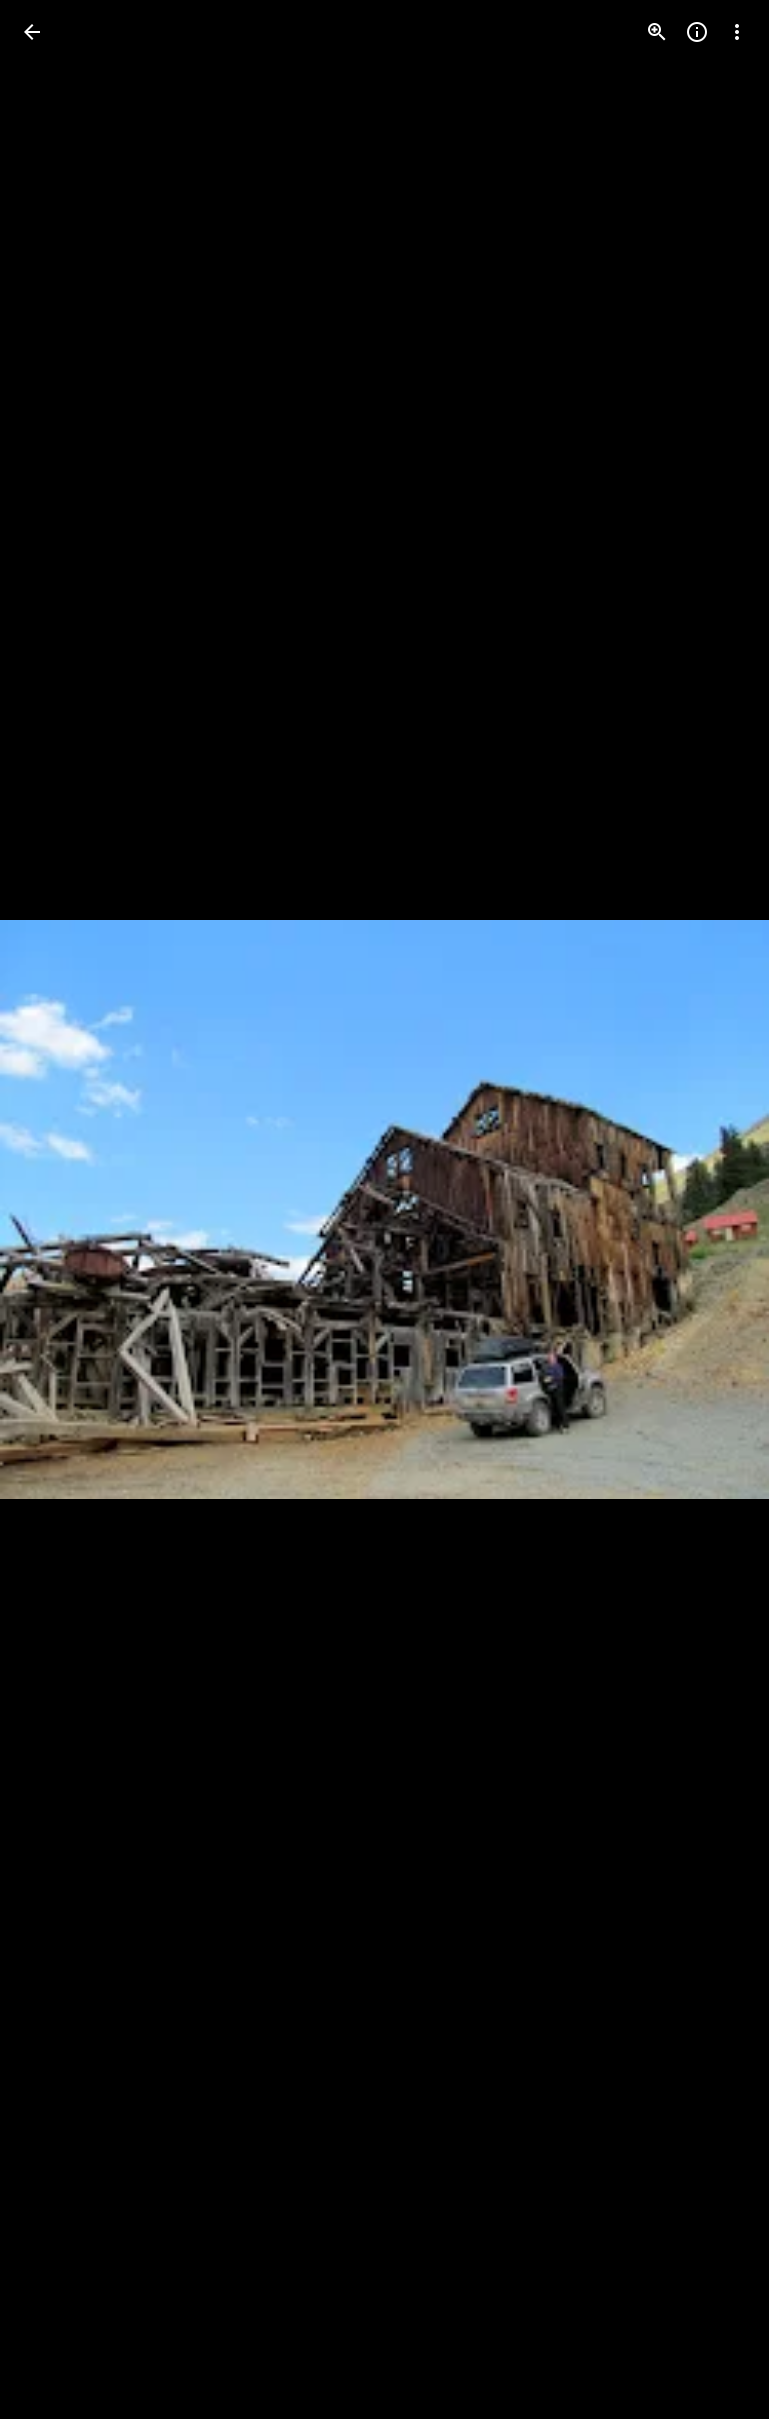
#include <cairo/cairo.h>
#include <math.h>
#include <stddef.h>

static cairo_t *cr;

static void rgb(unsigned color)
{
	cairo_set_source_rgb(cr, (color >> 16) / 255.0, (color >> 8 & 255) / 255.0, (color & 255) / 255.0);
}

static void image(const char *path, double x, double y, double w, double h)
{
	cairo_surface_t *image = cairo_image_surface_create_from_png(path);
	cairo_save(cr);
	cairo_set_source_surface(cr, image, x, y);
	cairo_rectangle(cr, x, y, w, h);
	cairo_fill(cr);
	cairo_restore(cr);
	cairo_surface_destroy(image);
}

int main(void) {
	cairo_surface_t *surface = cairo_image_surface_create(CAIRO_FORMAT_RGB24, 769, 2419);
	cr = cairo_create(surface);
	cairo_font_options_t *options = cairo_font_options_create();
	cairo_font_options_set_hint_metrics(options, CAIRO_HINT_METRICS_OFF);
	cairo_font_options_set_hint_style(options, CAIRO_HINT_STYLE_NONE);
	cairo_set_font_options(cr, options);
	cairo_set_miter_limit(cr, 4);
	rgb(0x000000);
	cairo_paint(cr);
	image("img/1.png", 24, 24, 16, 16);
	image("img/2.png", 648, 23, 18, 18);
	image("img/3.png", 687, 22, 20, 20);
	image("img/4.png", 735, 24, 4, 16);
	image("img/5.png", 0, 920, 769, 579);
	cairo_surface_write_to_png(surface, "page.png");
	cairo_font_options_destroy(options);
	cairo_destroy(cr);
	cairo_surface_destroy(surface);
	return 0;
}
